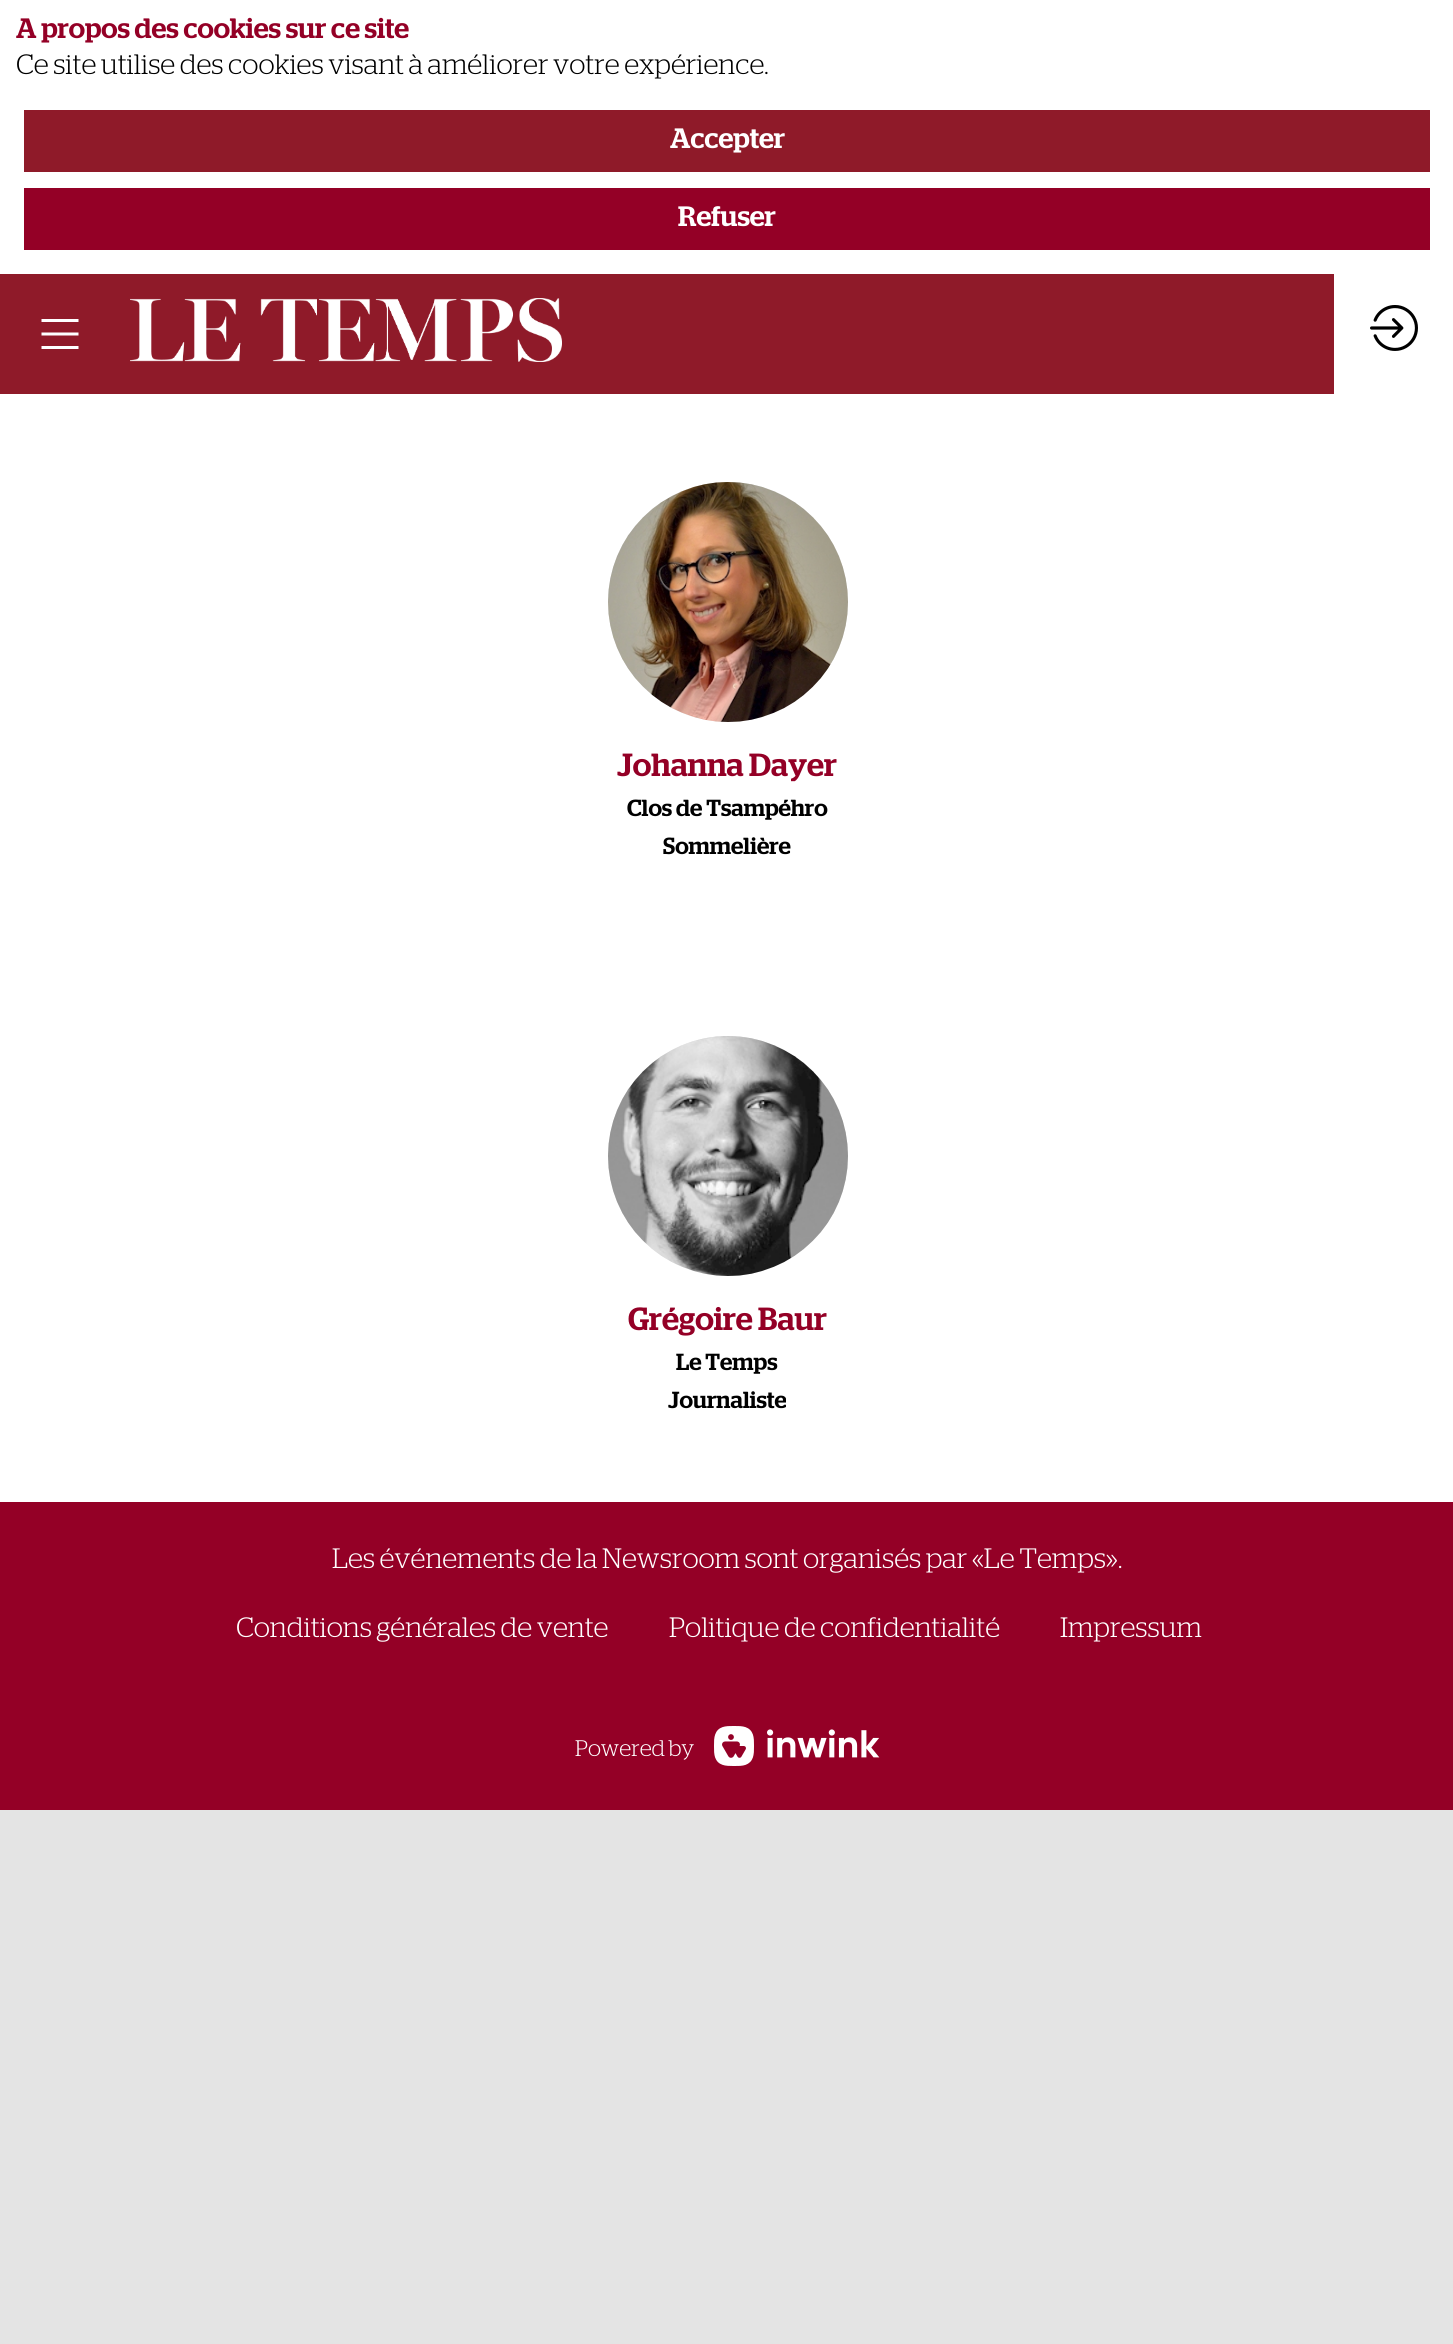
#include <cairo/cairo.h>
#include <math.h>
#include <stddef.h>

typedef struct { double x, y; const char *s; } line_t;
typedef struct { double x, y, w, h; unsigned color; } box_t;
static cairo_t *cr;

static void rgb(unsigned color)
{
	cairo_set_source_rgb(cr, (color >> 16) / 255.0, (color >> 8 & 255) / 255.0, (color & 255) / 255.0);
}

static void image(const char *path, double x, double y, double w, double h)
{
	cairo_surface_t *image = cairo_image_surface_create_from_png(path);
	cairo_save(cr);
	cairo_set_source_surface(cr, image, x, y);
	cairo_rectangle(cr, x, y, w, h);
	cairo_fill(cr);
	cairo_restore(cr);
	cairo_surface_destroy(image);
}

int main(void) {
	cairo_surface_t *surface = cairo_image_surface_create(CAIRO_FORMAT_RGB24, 1453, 2344);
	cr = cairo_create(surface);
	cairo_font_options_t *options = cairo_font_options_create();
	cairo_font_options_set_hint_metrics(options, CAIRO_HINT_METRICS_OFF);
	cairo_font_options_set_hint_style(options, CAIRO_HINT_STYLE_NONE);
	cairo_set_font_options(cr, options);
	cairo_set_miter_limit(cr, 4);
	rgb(0xe4e4e4);
	cairo_paint(cr);
	{
		static const box_t items[] = {
			{0, 0, 1453, 274, 0xffffff},
			{24, 110, 1406, 62, 0x8f1a29},
			{24, 188, 1406, 62, 0x940026},
			{0, 274, 1334, 120, 0x8f1a29},
		};
		for (size_t i = 0; i < sizeof items / sizeof *items; i++) {
			rgb(items[i].color);
			cairo_rectangle(cr, items[i].x, items[i].y, items[i].w, items[i].h);
			cairo_fill(cr);
		}
	}
	rgb(0xffffff);
	cairo_new_path(cr);
	cairo_move_to(cr, 41.5, 319);
	cairo_line_to(cr, 78.5, 319);
	cairo_line_to(cr, 78.5, 322);
	cairo_line_to(cr, 41.5, 322);
	cairo_close_path(cr);
	cairo_move_to(cr, 41.5, 332.5);
	cairo_line_to(cr, 78.5, 332.5);
	cairo_line_to(cr, 78.5, 335.5);
	cairo_line_to(cr, 41.5, 335.5);
	cairo_close_path(cr);
	cairo_move_to(cr, 41.5, 346);
	cairo_line_to(cr, 78.5, 346);
	cairo_line_to(cr, 78.5, 349);
	cairo_line_to(cr, 41.5, 349);
	cairo_close_path(cr);
	cairo_fill(cr);
	image("img/1.png", 130, 298, 432, 64);
	cairo_rectangle(cr, 1334, 274, 119, 120);
	cairo_fill(cr);
	image("img/2.png", 1370, 305, 48, 46);
	cairo_rectangle(cr, 0, 394, 1453, 1108);
	cairo_fill(cr);
	rgb(0xe9e9e9);
	cairo_arc(cr, 728, 602, 120, 0, 2 * M_PI);
	cairo_fill(cr);
	image("img/3.png", 608, 482, 240, 240);
	cairo_arc(cr, 728, 1156, 120, 0, 2 * M_PI);
	cairo_fill(cr);
	image("img/4.png", 608, 1036, 240, 240);
	rgb(0x940026);
	cairo_rectangle(cr, 0, 1502, 1453, 308);
	cairo_fill(cr);
	image("img/5.png", 714, 1726, 166, 40);
	cairo_select_font_face(cr, "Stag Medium", CAIRO_FONT_SLANT_NORMAL, CAIRO_FONT_WEIGHT_NORMAL);
	cairo_set_font_size(cr, 28);
	cairo_move_to(cr, 16, 38);
	cairo_show_text(cr, "A propos des cookies sur ce site");
	cairo_select_font_face(cr, "Stag Light", CAIRO_FONT_SLANT_NORMAL, CAIRO_FONT_WEIGHT_NORMAL);
	rgb(0x000000);
	cairo_move_to(cr, 16, 74);
	cairo_show_text(cr, "Ce site utilise des cookies visant à améliorer votre expérience.");
	cairo_select_font_face(cr, "Stag Medium", CAIRO_FONT_SLANT_NORMAL, CAIRO_FONT_WEIGHT_NORMAL);
	rgb(0xffffff);
	cairo_move_to(cr, 670, 148);
	cairo_show_text(cr, "Accepter");
	cairo_move_to(cr, 678, 226);
	cairo_show_text(cr, "Refuser");
	cairo_set_font_size(cr, 32);
	rgb(0x940026);
	cairo_move_to(cr, 617, 776);
	cairo_show_text(cr, "Johanna Dayer");
	cairo_set_font_size(cr, 23.25);
	rgb(0x000000);
	cairo_move_to(cr, 627, 816);
	cairo_show_text(cr, "Clos de Tsampéhro");
	cairo_move_to(cr, 663, 854);
	cairo_show_text(cr, "Sommelière");
	cairo_set_font_size(cr, 32);
	rgb(0x940026);
	cairo_move_to(cr, 628, 1330);
	cairo_show_text(cr, "Grégoire Baur");
	cairo_set_font_size(cr, 23.25);
	rgb(0x000000);
	cairo_move_to(cr, 676, 1370);
	cairo_show_text(cr, "Le Temps");
	cairo_move_to(cr, 668, 1408);
	cairo_show_text(cr, "Journaliste");
	cairo_select_font_face(cr, "Stag Light", CAIRO_FONT_SLANT_NORMAL, CAIRO_FONT_WEIGHT_NORMAL);
	cairo_set_font_size(cr, 28);
	rgb(0xffffff);
	{
		static const line_t items[] = {
			{332, 1568, "Les événements de la Newsroom sont organisés par «Le Temps»."},
			{236, 1637, "Conditions générales de vente"},
			{669, 1637, "Politique de confidentialité"},
			{1060, 1637, "Impressum"},
		};
		for (size_t i = 0; i < sizeof items / sizeof *items; i++) {
			cairo_move_to(cr, items[i].x, items[i].y);
			cairo_show_text(cr, items[i].s);
		}
	}
	cairo_set_font_size(cr, 22.5);
	cairo_move_to(cr, 575, 1756);
	cairo_show_text(cr, "Powered by");
	cairo_surface_write_to_png(surface, "page.png");
	cairo_font_options_destroy(options);
	cairo_destroy(cr);
	cairo_surface_destroy(surface);
	return 0;
}
